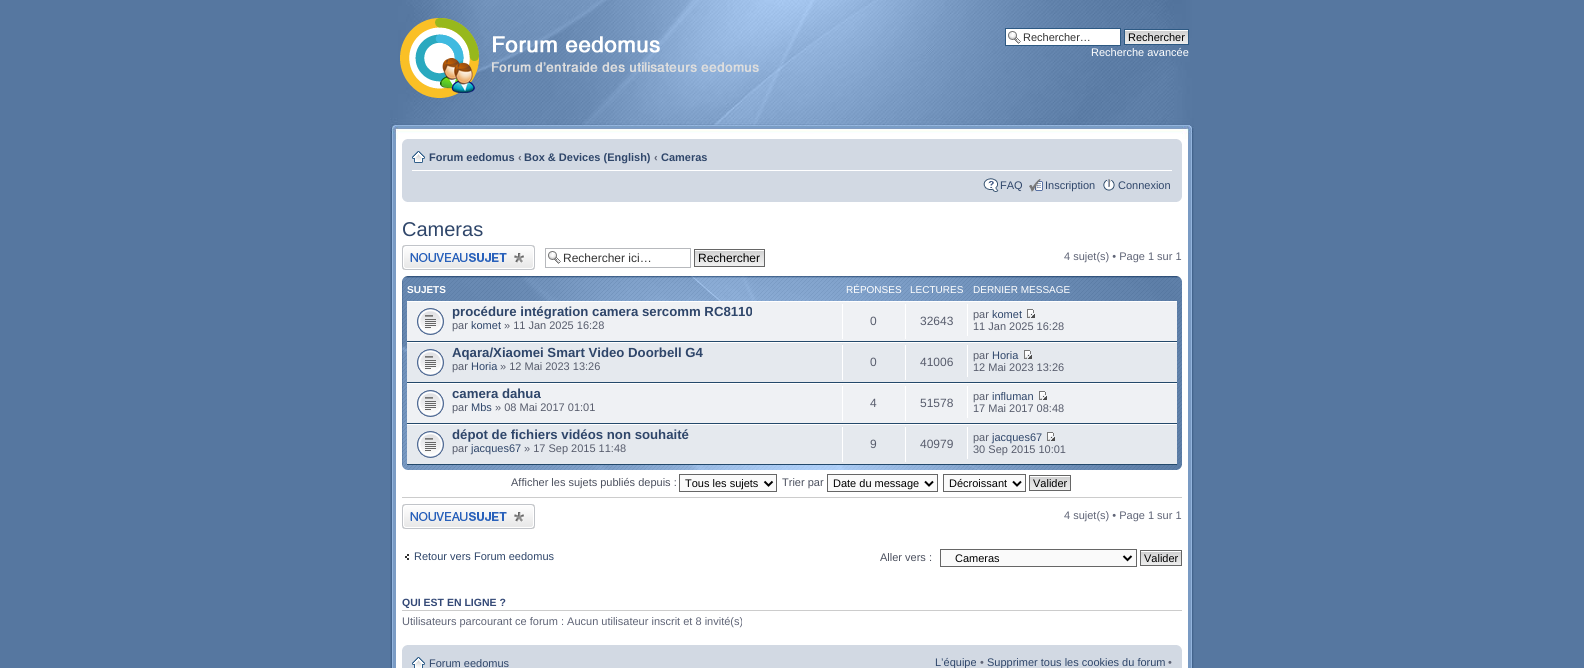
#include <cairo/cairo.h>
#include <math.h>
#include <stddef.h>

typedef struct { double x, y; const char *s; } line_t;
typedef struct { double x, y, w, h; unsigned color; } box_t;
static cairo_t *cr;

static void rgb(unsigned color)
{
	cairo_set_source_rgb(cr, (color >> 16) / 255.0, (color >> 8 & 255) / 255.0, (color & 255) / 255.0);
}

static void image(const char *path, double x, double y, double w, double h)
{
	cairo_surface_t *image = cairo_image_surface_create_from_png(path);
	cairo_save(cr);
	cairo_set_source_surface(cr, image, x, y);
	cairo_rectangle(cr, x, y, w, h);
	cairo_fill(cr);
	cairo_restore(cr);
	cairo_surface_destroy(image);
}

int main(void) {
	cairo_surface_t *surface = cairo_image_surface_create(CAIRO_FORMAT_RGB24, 1584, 668);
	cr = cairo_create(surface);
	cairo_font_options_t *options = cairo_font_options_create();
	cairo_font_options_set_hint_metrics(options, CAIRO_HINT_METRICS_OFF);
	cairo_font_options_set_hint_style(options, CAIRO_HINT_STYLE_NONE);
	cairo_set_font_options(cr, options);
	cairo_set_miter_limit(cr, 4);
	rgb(0x5677a0);
	cairo_paint(cr);
	image("img/1.png", 390, 0, 804, 139);
	image("img/2.png", 400, 18, 359, 80);
	rgb(0xffffff);
	cairo_rectangle(cr, 1006, 29, 114, 16);
	cairo_fill(cr);
	image("img/3.png", 1008, 31, 13, 13);
	cairo_rectangle(cr, 1005.5, 28.5, 115, 17);
	rgb(0x2d5983);
	cairo_set_line_width(cr, 1);
	cairo_stroke(cr);
	image("img/4.png", 1125, 30, 63, 14);
	cairo_rectangle(cr, 1124.5, 29.5, 64, 15);
	cairo_stroke(cr);
	image("img/5.png", 390, 139, 804, 529);
	rgb(0xd2d9e3);
	cairo_rectangle(cr, 402, 139, 780, 63);
	cairo_fill(cr);
	image("img/6.png", 402, 139, 5, 5);
	image("img/7.png", 1177, 139, 5, 5);
	rgb(0xffffff);
	cairo_rectangle(cr, 412, 170, 760, 1);
	cairo_fill(cr);
	image("img/8.png", 412, 151, 13, 12);
	image("img/9.png", 983, 178, 16, 14);
	image("img/10.png", 1029, 179, 14, 13);
	image("img/11.png", 1103, 179, 12, 12);
	image("img/12.png", 402, 197, 5, 5);
	image("img/13.png", 1177, 197, 5, 5);
	image("img/14.png", 402, 245, 133, 25);
	image("img/3.png", 548, 251, 13, 13);
	cairo_rectangle(cr, 545.5, 248.5, 145, 19);
	rgb(0xb7b9bd);
	cairo_stroke(cr);
	image("img/15.png", 695, 250, 69, 16);
	cairo_rectangle(cr, 694.5, 249.5, 70, 17);
	rgb(0x666666);
	cairo_stroke(cr);
	image("img/16.png", 402, 276, 780, 194);
	image("img/17.png", 402, 276, 6, 5);
	image("img/18.png", 1176, 276, 6, 5);
	{
		static const box_t items[] = {
			{407, 302, 770, 39, 0xeff1f4},
			{407, 301, 770, 1, 0xffffff},
			{407, 341, 770, 1, 0x24496b},
		};
		for (size_t i = 0; i < sizeof items / sizeof *items; i++) {
			rgb(items[i].color);
			cairo_rectangle(cr, items[i].x, items[i].y, items[i].w, items[i].h);
			cairo_fill(cr);
		}
	}
	image("img/19.png", 417, 308, 27, 27);
	{
		static const box_t items[] = {
			{842, 304, 1, 35, 0xffffff},
			{905, 304, 1, 35, 0xffffff},
			{967, 304, 1, 32, 0xffffff},
		};
		for (size_t i = 0; i < sizeof items / sizeof *items; i++) {
			rgb(items[i].color);
			cairo_rectangle(cr, items[i].x, items[i].y, items[i].w, items[i].h);
			cairo_fill(cr);
		}
	}
	image("img/20.png", 1027, 309, 8, 9);
	{
		static const box_t items[] = {
			{407, 343, 770, 39, 0xe5e9ee},
			{407, 342, 770, 1, 0xffffff},
			{407, 382, 770, 1, 0x24496b},
		};
		for (size_t i = 0; i < sizeof items / sizeof *items; i++) {
			rgb(items[i].color);
			cairo_rectangle(cr, items[i].x, items[i].y, items[i].w, items[i].h);
			cairo_fill(cr);
		}
	}
	image("img/21.png", 417, 349, 27, 27);
	{
		static const box_t items[] = {
			{842, 345, 1, 35, 0xffffff},
			{905, 345, 1, 35, 0xffffff},
			{967, 345, 1, 32, 0xffffff},
		};
		for (size_t i = 0; i < sizeof items / sizeof *items; i++) {
			rgb(items[i].color);
			cairo_rectangle(cr, items[i].x, items[i].y, items[i].w, items[i].h);
			cairo_fill(cr);
		}
	}
	image("img/22.png", 1024, 350, 8, 9);
	{
		static const box_t items[] = {
			{407, 384, 770, 39, 0xeff1f4},
			{407, 383, 770, 1, 0xffffff},
			{407, 423, 770, 1, 0x24496b},
		};
		for (size_t i = 0; i < sizeof items / sizeof *items; i++) {
			rgb(items[i].color);
			cairo_rectangle(cr, items[i].x, items[i].y, items[i].w, items[i].h);
			cairo_fill(cr);
		}
	}
	image("img/19.png", 417, 390, 27, 27);
	{
		static const box_t items[] = {
			{842, 386, 1, 35, 0xffffff},
			{905, 386, 1, 35, 0xffffff},
			{967, 386, 1, 32, 0xffffff},
		};
		for (size_t i = 0; i < sizeof items / sizeof *items; i++) {
			rgb(items[i].color);
			cairo_rectangle(cr, items[i].x, items[i].y, items[i].w, items[i].h);
			cairo_fill(cr);
		}
	}
	image("img/20.png", 1039, 391, 8, 9);
	{
		static const box_t items[] = {
			{407, 425, 770, 39, 0xe5e9ee},
			{407, 424, 770, 1, 0xffffff},
			{407, 464, 770, 1, 0x24496b},
		};
		for (size_t i = 0; i < sizeof items / sizeof *items; i++) {
			rgb(items[i].color);
			cairo_rectangle(cr, items[i].x, items[i].y, items[i].w, items[i].h);
			cairo_fill(cr);
		}
	}
	image("img/21.png", 417, 431, 27, 27);
	{
		static const box_t items[] = {
			{842, 427, 1, 35, 0xffffff},
			{905, 427, 1, 35, 0xffffff},
			{967, 427, 1, 32, 0xffffff},
		};
		for (size_t i = 0; i < sizeof items / sizeof *items; i++) {
			rgb(items[i].color);
			cairo_rectangle(cr, items[i].x, items[i].y, items[i].w, items[i].h);
			cairo_fill(cr);
		}
	}
	image("img/22.png", 1047, 432, 8, 9);
	image("img/23.png", 402, 465, 5, 5);
	image("img/24.png", 1177, 465, 5, 5);
	rgb(0xfafafa);
	cairo_rectangle(cr, 679.5, 474.5, 97, 17);
	cairo_fill_preserve(cr);
	rgb(0x666666);
	cairo_stroke(cr);
	cairo_new_path(cr);
	cairo_move_to(cr, 764.5, 481.5);
	cairo_line_to(cr, 768.5, 485.5);
	cairo_line_to(cr, 772.5, 481.5);
	rgb(0x000000);
	cairo_set_line_width(cr, 2);
	cairo_stroke(cr);
	rgb(0xfafafa);
	cairo_rectangle(cr, 827.5, 474.5, 110, 17);
	cairo_fill_preserve(cr);
	rgb(0x666666);
	cairo_set_line_width(cr, 1);
	cairo_stroke(cr);
	cairo_new_path(cr);
	cairo_move_to(cr, 925, 481.5);
	cairo_line_to(cr, 929, 485.5);
	cairo_line_to(cr, 933, 481.5);
	rgb(0x000000);
	cairo_set_line_width(cr, 2);
	cairo_stroke(cr);
	rgb(0xfafafa);
	cairo_rectangle(cr, 943.5, 474.5, 82, 17);
	cairo_fill_preserve(cr);
	rgb(0x666666);
	cairo_set_line_width(cr, 1);
	cairo_stroke(cr);
	cairo_new_path(cr);
	cairo_move_to(cr, 1013, 481.5);
	cairo_line_to(cr, 1017, 485.5);
	cairo_line_to(cr, 1021, 481.5);
	rgb(0x000000);
	cairo_set_line_width(cr, 2);
	cairo_stroke(cr);
	image("img/25.png", 1030, 476, 40, 14);
	cairo_rectangle(cr, 1029.5, 475.5, 41, 15);
	rgb(0x666666);
	cairo_set_line_width(cr, 1);
	cairo_stroke(cr);
	rgb(0xcccccc);
	cairo_rectangle(cr, 402, 497, 780, 1);
	cairo_fill(cr);
	image("img/14.png", 402, 504, 133, 25);
	image("img/26.png", 405, 554, 4, 6);
	rgb(0xfafafa);
	cairo_rectangle(cr, 940.5, 549.5, 196, 17);
	cairo_fill_preserve(cr);
	rgb(0x666666);
	cairo_stroke(cr);
	cairo_new_path(cr);
	cairo_move_to(cr, 1123.5, 556);
	cairo_line_to(cr, 1127.5, 560);
	cairo_line_to(cr, 1131.5, 556);
	rgb(0x000000);
	cairo_set_line_width(cr, 2);
	cairo_stroke(cr);
	image("img/25.png", 1141, 551, 40, 14);
	cairo_rectangle(cr, 1140.5, 550.5, 41, 15);
	rgb(0x666666);
	cairo_set_line_width(cr, 1);
	cairo_stroke(cr);
	rgb(0xcccccc);
	cairo_rectangle(cr, 402, 610, 780, 1);
	cairo_fill(cr);
	rgb(0xd2d9e3);
	cairo_rectangle(cr, 402, 645, 780, 23);
	cairo_fill(cr);
	image("img/6.png", 402, 645, 5, 5);
	image("img/7.png", 1177, 645, 5, 5);
	image("img/27.png", 412, 657, 13, 11);
	cairo_select_font_face(cr, "Liberation Sans", CAIRO_FONT_SLANT_NORMAL, CAIRO_FONT_WEIGHT_NORMAL);
	cairo_set_font_size(cr, 11);
	rgb(0x333333);
	cairo_move_to(cr, 1023, 41);
	cairo_show_text(cr, "Rechercher…");
	rgb(0x000000);
	cairo_move_to(cr, 1128, 41);
	cairo_show_text(cr, "Rechercher");
	rgb(0xffffff);
	cairo_move_to(cr, 1091, 56);
	cairo_show_text(cr, "Recherche avancée");
	cairo_select_font_face(cr, "Liberation Sans", CAIRO_FONT_SLANT_NORMAL, CAIRO_FONT_WEIGHT_BOLD);
	rgb(0x2f466a);
	cairo_move_to(cr, 429, 161);
	cairo_show_text(cr, "Forum eedomus");
	rgb(0x5f6476);
	cairo_move_to(cr, 518, 161);
	cairo_show_text(cr, "‹");
	rgb(0x2f466a);
	cairo_move_to(cr, 524, 161);
	cairo_show_text(cr, "Box & Devices (English)");
	rgb(0x5f6476);
	cairo_move_to(cr, 654, 161);
	cairo_show_text(cr, "‹");
	rgb(0x2f466a);
	cairo_move_to(cr, 661, 161);
	cairo_show_text(cr, "Cameras");
	cairo_select_font_face(cr, "Liberation Sans", CAIRO_FONT_SLANT_NORMAL, CAIRO_FONT_WEIGHT_NORMAL);
	{
		static const line_t items[] = {
			{1000, 189, "FAQ"},
			{1045, 189, "Inscription"},
			{1118, 189, "Connexion"},
		};
		for (size_t i = 0; i < sizeof items / sizeof *items; i++) {
			cairo_move_to(cr, items[i].x, items[i].y);
			cairo_show_text(cr, items[i].s);
		}
	}
	cairo_set_font_size(cr, 20);
	cairo_move_to(cr, 402, 236);
	cairo_show_text(cr, "Cameras");
	cairo_set_font_size(cr, 12);
	rgb(0x333333);
	cairo_move_to(cr, 563, 262);
	cairo_show_text(cr, "Rechercher ici…");
	rgb(0x000000);
	cairo_move_to(cr, 698, 262);
	cairo_show_text(cr, "Rechercher");
	cairo_set_font_size(cr, 11);
	rgb(0x5f6476);
	cairo_move_to(cr, 1064, 260);
	cairo_show_text(cr, "4 sujet(s) • Page 1 sur 1");
	cairo_select_font_face(cr, "Liberation Sans", CAIRO_FONT_SLANT_NORMAL, CAIRO_FONT_WEIGHT_BOLD);
	cairo_set_font_size(cr, 10);
	rgb(0xffffff);
	cairo_move_to(cr, 407, 293);
	cairo_show_text(cr, "SUJETS");
	cairo_select_font_face(cr, "Liberation Sans", CAIRO_FONT_SLANT_NORMAL, CAIRO_FONT_WEIGHT_NORMAL);
	{
		static const line_t items[] = {
			{846, 293, "RÉPONSES"},
			{910, 293, "LECTURES"},
			{973, 293, "DERNIER MESSAGE"},
		};
		for (size_t i = 0; i < sizeof items / sizeof *items; i++) {
			cairo_move_to(cr, items[i].x, items[i].y);
			cairo_show_text(cr, items[i].s);
		}
	}
	cairo_select_font_face(cr, "Liberation Sans", CAIRO_FONT_SLANT_NORMAL, CAIRO_FONT_WEIGHT_BOLD);
	cairo_set_font_size(cr, 13.2);
	rgb(0x2f466a);
	cairo_move_to(cr, 452, 316);
	cairo_show_text(cr, "procédure intégration camera sercomm RC8110");
	cairo_select_font_face(cr, "Liberation Sans", CAIRO_FONT_SLANT_NORMAL, CAIRO_FONT_WEIGHT_NORMAL);
	cairo_set_font_size(cr, 11);
	rgb(0x575c6c);
	cairo_move_to(cr, 452, 329);
	cairo_show_text(cr, "par");
	rgb(0x2f466a);
	cairo_move_to(cr, 471, 329);
	cairo_show_text(cr, "komet");
	rgb(0x575c6c);
	cairo_move_to(cr, 504, 329);
	cairo_show_text(cr, "» 11 Jan 2025 16:28");
	cairo_set_font_size(cr, 12);
	cairo_move_to(cr, 870, 325);
	cairo_show_text(cr, "0");
	cairo_move_to(cr, 920, 325);
	cairo_show_text(cr, "32643");
	cairo_set_font_size(cr, 11);
	cairo_move_to(cr, 973, 318);
	cairo_show_text(cr, "par");
	rgb(0x2f466a);
	cairo_move_to(cr, 992, 318);
	cairo_show_text(cr, "komet");
	rgb(0x575c6c);
	cairo_move_to(cr, 973, 330);
	cairo_show_text(cr, "11 Jan 2025 16:28");
	cairo_select_font_face(cr, "Liberation Sans", CAIRO_FONT_SLANT_NORMAL, CAIRO_FONT_WEIGHT_BOLD);
	cairo_set_font_size(cr, 13.2);
	rgb(0x2f466a);
	cairo_move_to(cr, 452, 357);
	cairo_show_text(cr, "Aqara/Xiaomei Smart Video Doorbell G4");
	cairo_select_font_face(cr, "Liberation Sans", CAIRO_FONT_SLANT_NORMAL, CAIRO_FONT_WEIGHT_NORMAL);
	cairo_set_font_size(cr, 11);
	rgb(0x575c6c);
	cairo_move_to(cr, 452, 370);
	cairo_show_text(cr, "par");
	rgb(0x2f466a);
	cairo_move_to(cr, 471, 370);
	cairo_show_text(cr, "Horia");
	rgb(0x575c6c);
	cairo_move_to(cr, 500, 370);
	cairo_show_text(cr, "» 12 Mai 2023 13:26");
	cairo_set_font_size(cr, 12);
	cairo_move_to(cr, 870, 366);
	cairo_show_text(cr, "0");
	cairo_move_to(cr, 920, 366);
	cairo_show_text(cr, "41006");
	cairo_set_font_size(cr, 11);
	cairo_move_to(cr, 973, 359);
	cairo_show_text(cr, "par");
	rgb(0x2f466a);
	cairo_move_to(cr, 992, 359);
	cairo_show_text(cr, "Horia");
	rgb(0x575c6c);
	cairo_move_to(cr, 973, 371);
	cairo_show_text(cr, "12 Mai 2023 13:26");
	cairo_select_font_face(cr, "Liberation Sans", CAIRO_FONT_SLANT_NORMAL, CAIRO_FONT_WEIGHT_BOLD);
	cairo_set_font_size(cr, 13.2);
	rgb(0x2f466a);
	cairo_move_to(cr, 452, 398);
	cairo_show_text(cr, "camera dahua");
	cairo_select_font_face(cr, "Liberation Sans", CAIRO_FONT_SLANT_NORMAL, CAIRO_FONT_WEIGHT_NORMAL);
	cairo_set_font_size(cr, 11);
	rgb(0x575c6c);
	cairo_move_to(cr, 452, 411);
	cairo_show_text(cr, "par");
	rgb(0x2f466a);
	cairo_move_to(cr, 471, 411);
	cairo_show_text(cr, "Mbs");
	rgb(0x575c6c);
	cairo_move_to(cr, 495, 411);
	cairo_show_text(cr, "» 08 Mai 2017 01:01");
	cairo_set_font_size(cr, 12);
	cairo_move_to(cr, 870, 407);
	cairo_show_text(cr, "4");
	cairo_move_to(cr, 920, 407);
	cairo_show_text(cr, "51578");
	cairo_set_font_size(cr, 11);
	cairo_move_to(cr, 973, 400);
	cairo_show_text(cr, "par");
	rgb(0x2f466a);
	cairo_move_to(cr, 992, 400);
	cairo_show_text(cr, "influman");
	rgb(0x575c6c);
	cairo_move_to(cr, 973, 412);
	cairo_show_text(cr, "17 Mai 2017 08:48");
	cairo_select_font_face(cr, "Liberation Sans", CAIRO_FONT_SLANT_NORMAL, CAIRO_FONT_WEIGHT_BOLD);
	cairo_set_font_size(cr, 13.2);
	rgb(0x2f466a);
	cairo_move_to(cr, 452, 439);
	cairo_show_text(cr, "dépot de fichiers vidéos non souhaité");
	cairo_select_font_face(cr, "Liberation Sans", CAIRO_FONT_SLANT_NORMAL, CAIRO_FONT_WEIGHT_NORMAL);
	cairo_set_font_size(cr, 11);
	rgb(0x575c6c);
	cairo_move_to(cr, 452, 452);
	cairo_show_text(cr, "par");
	rgb(0x2f466a);
	cairo_move_to(cr, 471, 452);
	cairo_show_text(cr, "jacques67");
	rgb(0x575c6c);
	cairo_move_to(cr, 524, 452);
	cairo_show_text(cr, "» 17 Sep 2015 11:48");
	cairo_set_font_size(cr, 12);
	cairo_move_to(cr, 870, 448);
	cairo_show_text(cr, "9");
	cairo_move_to(cr, 920, 448);
	cairo_show_text(cr, "40979");
	cairo_set_font_size(cr, 11);
	cairo_move_to(cr, 973, 441);
	cairo_show_text(cr, "par");
	rgb(0x2f466a);
	cairo_move_to(cr, 992, 441);
	cairo_show_text(cr, "jacques67");
	rgb(0x575c6c);
	cairo_move_to(cr, 973, 453);
	cairo_show_text(cr, "30 Sep 2015 10:01");
	rgb(0x4b505e);
	cairo_move_to(cr, 511, 486);
	cairo_show_text(cr, "Afficher les sujets publiés depuis :");
	rgb(0x000000);
	cairo_move_to(cr, 685, 487);
	cairo_show_text(cr, "Tous les sujets");
	rgb(0x4b505e);
	cairo_move_to(cr, 782, 486);
	cairo_show_text(cr, "Trier par");
	rgb(0x000000);
	{
		static const line_t items[] = {
			{833, 487, "Date du message"},
			{949, 487, "Décroissant"},
			{1033, 487, "Valider"},
		};
		for (size_t i = 0; i < sizeof items / sizeof *items; i++) {
			cairo_move_to(cr, items[i].x, items[i].y);
			cairo_show_text(cr, items[i].s);
		}
	}
	rgb(0x5f6476);
	cairo_move_to(cr, 1064, 519);
	cairo_show_text(cr, "4 sujet(s) • Page 1 sur 1");
	rgb(0x2f466a);
	cairo_move_to(cr, 414, 560);
	cairo_show_text(cr, "Retour vers Forum eedomus");
	rgb(0x4b505e);
	cairo_move_to(cr, 880, 561);
	cairo_show_text(cr, "Aller vers :");
	rgb(0x000000);
	cairo_move_to(cr, 955, 562);
	cairo_show_text(cr, "Cameras");
	cairo_move_to(cr, 1144, 562);
	cairo_show_text(cr, "Valider");
	cairo_select_font_face(cr, "Liberation Sans", CAIRO_FONT_SLANT_NORMAL, CAIRO_FONT_WEIGHT_BOLD);
	cairo_set_font_size(cr, 10.5);
	rgb(0x334876);
	cairo_move_to(cr, 402, 606);
	cairo_show_text(cr, "QUI EST EN LIGNE ?");
	cairo_select_font_face(cr, "Liberation Sans", CAIRO_FONT_SLANT_NORMAL, CAIRO_FONT_WEIGHT_NORMAL);
	cairo_set_font_size(cr, 11);
	rgb(0x5f6476);
	cairo_move_to(cr, 402, 625);
	cairo_show_text(cr, "Utilisateurs parcourant ce forum : Aucun utilisateur inscrit et 8 invité(s)");
	rgb(0x2f466a);
	cairo_move_to(cr, 429, 667);
	cairo_show_text(cr, "Forum eedomus");
	cairo_move_to(cr, 935, 666);
	cairo_show_text(cr, "L’équipe");
	rgb(0x5f6476);
	cairo_move_to(cr, 980, 666);
	cairo_show_text(cr, "•");
	rgb(0x2f466a);
	cairo_move_to(cr, 987, 666);
	cairo_show_text(cr, "Supprimer tous les cookies du forum");
	rgb(0x5f6476);
	cairo_move_to(cr, 1168, 666);
	cairo_show_text(cr, "•");
	cairo_surface_write_to_png(surface, "page.png");
	cairo_font_options_destroy(options);
	cairo_destroy(cr);
	cairo_surface_destroy(surface);
	return 0;
}
